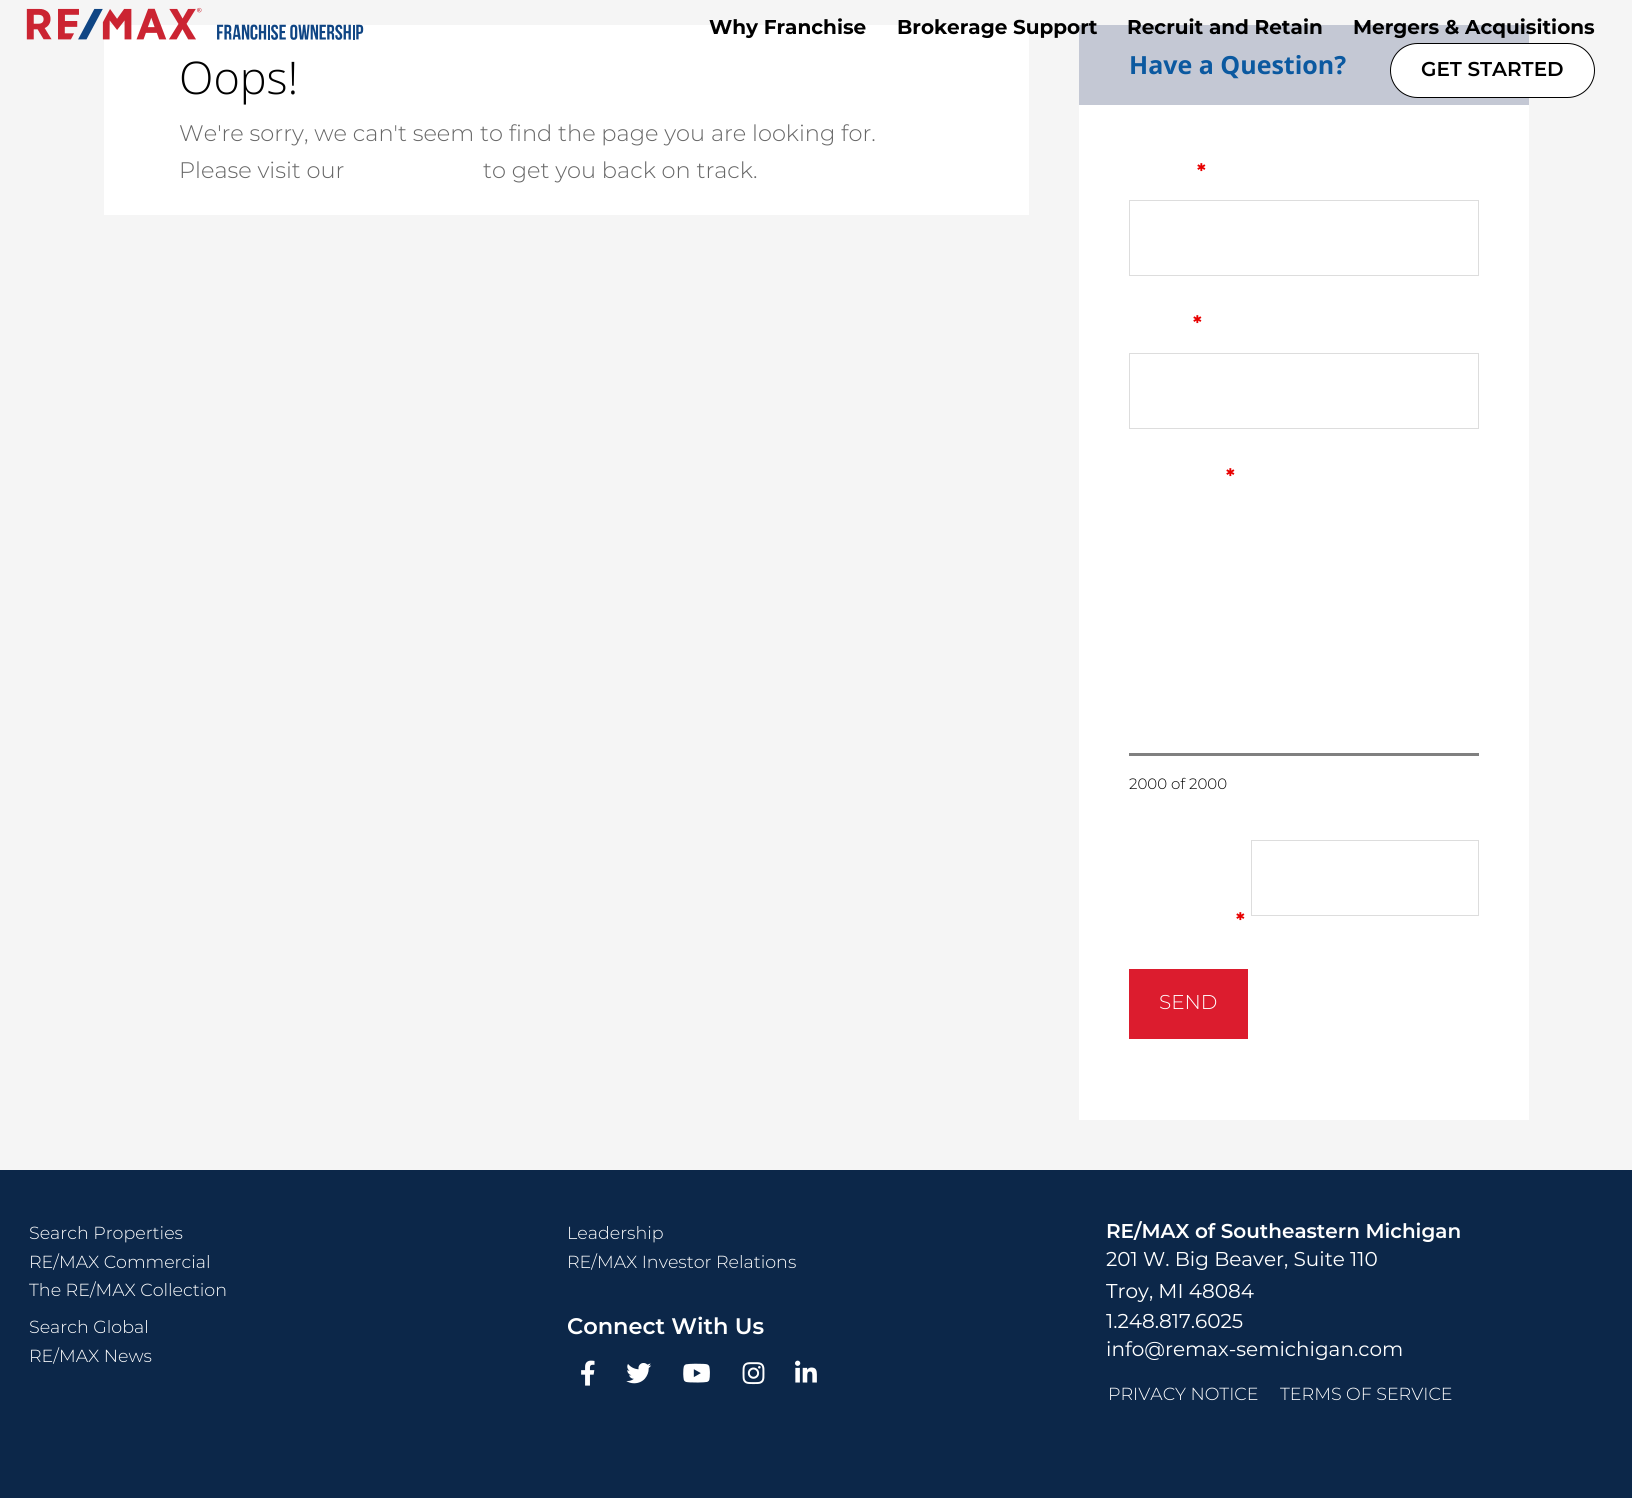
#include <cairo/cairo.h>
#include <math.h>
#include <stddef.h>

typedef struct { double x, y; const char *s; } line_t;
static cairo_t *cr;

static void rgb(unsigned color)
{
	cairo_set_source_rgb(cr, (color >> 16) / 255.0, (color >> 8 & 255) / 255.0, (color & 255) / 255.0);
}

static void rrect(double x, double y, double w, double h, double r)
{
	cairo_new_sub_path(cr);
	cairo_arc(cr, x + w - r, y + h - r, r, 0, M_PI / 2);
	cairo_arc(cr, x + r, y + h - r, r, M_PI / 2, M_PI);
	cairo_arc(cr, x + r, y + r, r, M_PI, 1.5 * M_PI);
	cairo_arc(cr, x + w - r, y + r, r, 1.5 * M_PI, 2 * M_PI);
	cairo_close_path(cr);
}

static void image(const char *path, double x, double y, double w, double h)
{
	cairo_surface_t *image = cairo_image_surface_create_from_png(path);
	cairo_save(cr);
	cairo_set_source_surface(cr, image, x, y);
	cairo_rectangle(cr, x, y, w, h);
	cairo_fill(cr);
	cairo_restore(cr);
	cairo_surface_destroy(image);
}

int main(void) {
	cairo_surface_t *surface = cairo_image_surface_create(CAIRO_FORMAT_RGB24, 1632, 1498);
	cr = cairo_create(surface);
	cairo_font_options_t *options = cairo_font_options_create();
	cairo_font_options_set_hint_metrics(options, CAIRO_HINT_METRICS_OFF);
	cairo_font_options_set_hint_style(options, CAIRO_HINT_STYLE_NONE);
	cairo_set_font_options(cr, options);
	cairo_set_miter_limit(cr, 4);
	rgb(0xf5f5f5);
	cairo_paint(cr);
	rgb(0xffffff);
	cairo_rectangle(cr, 104, 25, 925, 190);
	cairo_fill(cr);
	image("img/1.png", 26, 7, 338, 33);
	rgb(0xc4c8d4);
	cairo_rectangle(cr, 1079, 25, 450, 80);
	cairo_fill(cr);
	rgb(0xffffff);
	rrect(1390.5, 43.5, 204, 54, 27);
	cairo_fill_preserve(cr);
	rgb(0x000000);
	cairo_set_line_width(cr, 1);
	cairo_stroke(cr);
	rgb(0xffffff);
	cairo_rectangle(cr, 1079, 105, 450, 1015);
	cairo_fill(cr);
	cairo_rectangle(cr, 1129.5, 200.5, 349, 75);
	rgb(0xdddddd);
	cairo_stroke(cr);
	cairo_rectangle(cr, 1129.5, 353.5, 349, 75);
	cairo_stroke(cr);
	rgb(0x808080);
	cairo_rectangle(cr, 1129, 753, 350, 3);
	cairo_fill(cr);
	cairo_rectangle(cr, 1251.5, 840.5, 227, 75);
	rgb(0xdddddd);
	cairo_stroke(cr);
	rgb(0xdc1c2e);
	cairo_rectangle(cr, 1129, 969, 119, 70);
	cairo_fill(cr);
	rgb(0x0c2749);
	cairo_rectangle(cr, 0, 1170, 1632, 328);
	cairo_fill(cr);
	image("img/2.png", 581, 1360, 14, 26);
	image("img/3.png", 626, 1363, 26, 21);
	image("img/4.png", 683, 1363, 27, 20);
	image("img/5.png", 742, 1362, 23, 23);
	image("img/6.png", 795, 1360, 22, 23);
	cairo_select_font_face(cr, "Montserrat", CAIRO_FONT_SLANT_NORMAL, CAIRO_FONT_WEIGHT_BOLD);
	cairo_set_font_size(cr, 20);
	rgb(0x000000);
	{
		static const line_t items[] = {
			{709, 34, "Why Franchise"},
			{897, 34, "Brokerage Support"},
			{1127, 34, "Recruit and Retain"},
			{1353, 34, "Mergers & Acquisitions"},
		};
		for (size_t i = 0; i < sizeof items / sizeof *items; i++) {
			cairo_move_to(cr, items[i].x, items[i].y);
			cairo_show_text(cr, items[i].s);
		}
	}
	cairo_select_font_face(cr, "Montserrat SemiBold", CAIRO_FONT_SLANT_NORMAL, CAIRO_FONT_WEIGHT_NORMAL);
	cairo_move_to(cr, 1421, 76);
	cairo_show_text(cr, "GET STARTED");
	cairo_select_font_face(cr, "Open Sans Light", CAIRO_FONT_SLANT_NORMAL, CAIRO_FONT_WEIGHT_NORMAL);
	cairo_set_font_size(cr, 45);
	cairo_move_to(cr, 179, 94);
	cairo_show_text(cr, "Oops!");
	cairo_select_font_face(cr, "Montserrat Light", CAIRO_FONT_SLANT_NORMAL, CAIRO_FONT_WEIGHT_NORMAL);
	cairo_set_font_size(cr, 22.5);
	rgb(0x666666);
	{
		static const line_t items[] = {
			{179, 141, "We're sorry, we can't seem to find the page you are looking for."},
			{179, 178, "Please visit our"},
			{483, 178, "to get you back on track."},
		};
		for (size_t i = 0; i < sizeof items / sizeof *items; i++) {
			cairo_move_to(cr, items[i].x, items[i].y);
			cairo_show_text(cr, items[i].s);
		}
	}
	cairo_select_font_face(cr, "Open Sans", CAIRO_FONT_SLANT_NORMAL, CAIRO_FONT_WEIGHT_BOLD);
	cairo_set_font_size(cr, 25);
	rgb(0x0b59a0);
	cairo_move_to(cr, 1129, 74);
	cairo_show_text(cr, "Have a Question?");
	cairo_select_font_face(cr, "Montserrat", CAIRO_FONT_SLANT_NORMAL, CAIRO_FONT_WEIGHT_BOLD);
	cairo_set_font_size(cr, 20);
	rgb(0xe80000);
	{
		static const line_t items[] = {
			{1197, 178, "*"},
			{1193, 330, "*"},
			{1226, 483, "*"},
		};
		for (size_t i = 0; i < sizeof items / sizeof *items; i++) {
			cairo_move_to(cr, items[i].x, items[i].y);
			cairo_show_text(cr, items[i].s);
		}
	}
	cairo_select_font_face(cr, "Montserrat Light", CAIRO_FONT_SLANT_NORMAL, CAIRO_FONT_WEIGHT_NORMAL);
	cairo_set_font_size(cr, 15);
	rgb(0x000000);
	cairo_move_to(cr, 1129, 789);
	cairo_show_text(cr, "2000 of 2000");
	cairo_select_font_face(cr, "Montserrat", CAIRO_FONT_SLANT_NORMAL, CAIRO_FONT_WEIGHT_BOLD);
	cairo_set_font_size(cr, 20);
	rgb(0xe80000);
	cairo_move_to(cr, 1236, 927);
	cairo_show_text(cr, "*");
	cairo_select_font_face(cr, "Montserrat Light", CAIRO_FONT_SLANT_NORMAL, CAIRO_FONT_WEIGHT_NORMAL);
	rgb(0xffffff);
	cairo_move_to(cr, 1159, 1009);
	cairo_show_text(cr, "SEND");
	cairo_set_font_size(cr, 17.5);
	{
		static const line_t items[] = {
			{29, 1239, "Search Properties"},
			{29, 1268, "RE/MAX Commercial"},
			{29, 1296, "The RE/MAX Collection"},
			{29, 1333, "Search Global"},
			{29, 1362, "RE/MAX News"},
			{567, 1239, "Leadership"},
			{567, 1268, "RE/MAX Investor Relations"},
		};
		for (size_t i = 0; i < sizeof items / sizeof *items; i++) {
			cairo_move_to(cr, items[i].x, items[i].y);
			cairo_show_text(cr, items[i].s);
		}
	}
	cairo_select_font_face(cr, "Montserrat SemiBold", CAIRO_FONT_SLANT_NORMAL, CAIRO_FONT_WEIGHT_NORMAL);
	cairo_set_font_size(cr, 22.5);
	cairo_move_to(cr, 567, 1334);
	cairo_show_text(cr, "Connect With Us");
	cairo_set_font_size(cr, 20);
	cairo_move_to(cr, 1106, 1238);
	cairo_show_text(cr, "RE/MAX of Southeastern Michigan");
	cairo_select_font_face(cr, "Montserrat", CAIRO_FONT_SLANT_NORMAL, CAIRO_FONT_WEIGHT_NORMAL);
	{
		static const line_t items[] = {
			{1106, 1266, "201 W. Big Beaver, Suite 110"},
			{1106, 1298, "Troy, MI 48084"},
			{1106, 1328, "1.248.817.6025"},
			{1106, 1356, "info@remax-semichigan.com"},
		};
		for (size_t i = 0; i < sizeof items / sizeof *items; i++) {
			cairo_move_to(cr, items[i].x, items[i].y);
			cairo_show_text(cr, items[i].s);
		}
	}
	cairo_select_font_face(cr, "Montserrat Light", CAIRO_FONT_SLANT_NORMAL, CAIRO_FONT_WEIGHT_NORMAL);
	cairo_set_font_size(cr, 17.5);
	cairo_move_to(cr, 1108, 1400);
	cairo_show_text(cr, "PRIVACY NOTICE");
	cairo_move_to(cr, 1280, 1400);
	cairo_show_text(cr, "TERMS OF SERVICE");
	cairo_surface_write_to_png(surface, "page.png");
	cairo_font_options_destroy(options);
	cairo_destroy(cr);
	cairo_surface_destroy(surface);
	return 0;
}
